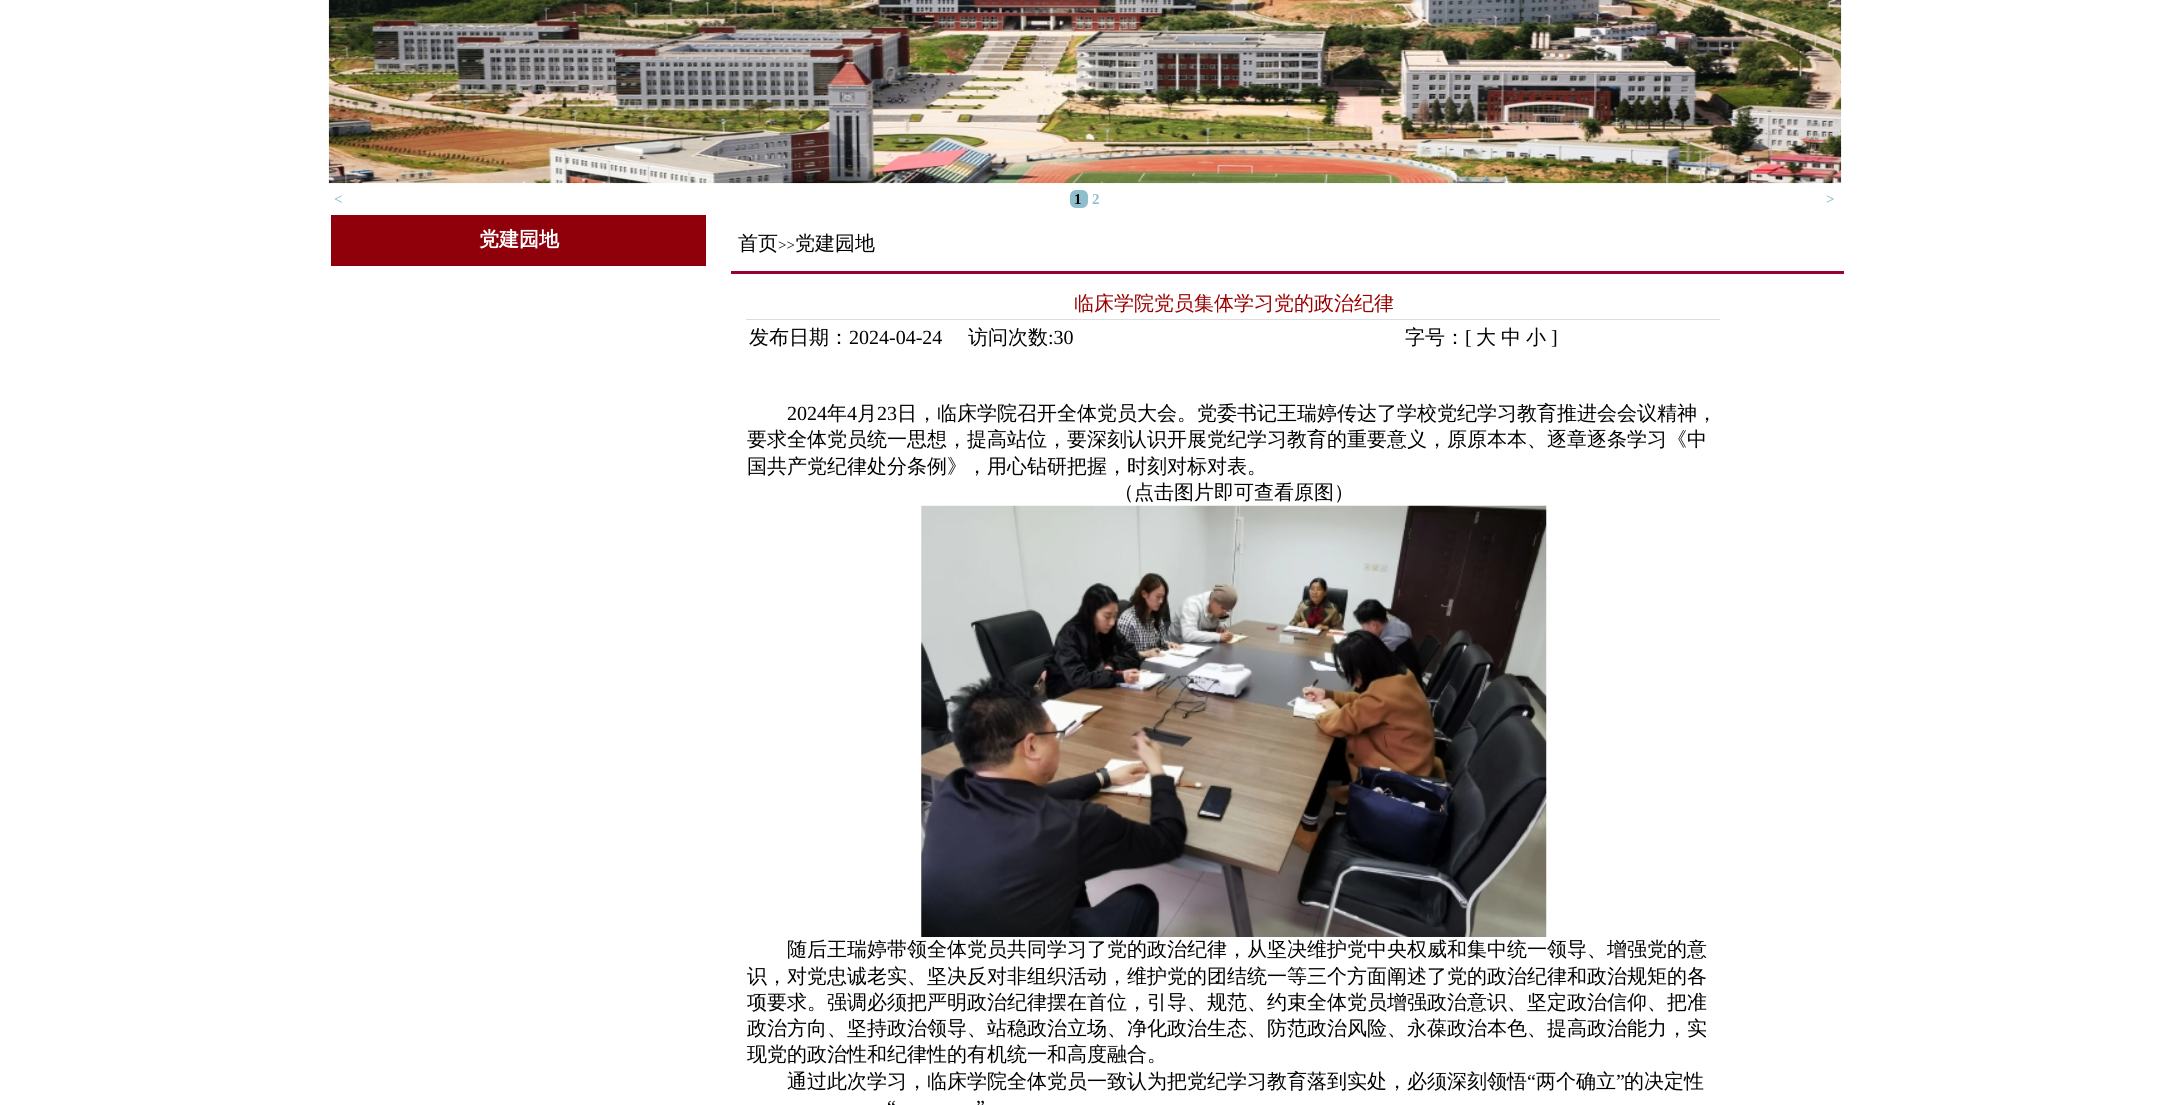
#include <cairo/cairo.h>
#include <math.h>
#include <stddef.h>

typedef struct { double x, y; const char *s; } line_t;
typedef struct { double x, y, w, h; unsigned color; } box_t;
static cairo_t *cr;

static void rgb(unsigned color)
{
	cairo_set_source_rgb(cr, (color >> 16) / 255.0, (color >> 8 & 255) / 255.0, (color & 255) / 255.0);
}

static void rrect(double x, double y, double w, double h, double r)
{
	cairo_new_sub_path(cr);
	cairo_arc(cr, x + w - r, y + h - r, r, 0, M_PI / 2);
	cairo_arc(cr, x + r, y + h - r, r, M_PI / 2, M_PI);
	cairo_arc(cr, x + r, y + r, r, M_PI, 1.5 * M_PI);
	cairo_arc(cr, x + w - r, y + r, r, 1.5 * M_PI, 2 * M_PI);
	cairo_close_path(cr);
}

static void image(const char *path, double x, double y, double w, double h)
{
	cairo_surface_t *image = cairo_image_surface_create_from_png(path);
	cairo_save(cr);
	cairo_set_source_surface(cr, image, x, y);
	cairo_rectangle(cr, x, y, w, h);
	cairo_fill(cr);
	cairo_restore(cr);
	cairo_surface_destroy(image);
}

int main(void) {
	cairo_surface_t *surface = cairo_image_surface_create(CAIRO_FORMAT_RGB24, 2168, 1105);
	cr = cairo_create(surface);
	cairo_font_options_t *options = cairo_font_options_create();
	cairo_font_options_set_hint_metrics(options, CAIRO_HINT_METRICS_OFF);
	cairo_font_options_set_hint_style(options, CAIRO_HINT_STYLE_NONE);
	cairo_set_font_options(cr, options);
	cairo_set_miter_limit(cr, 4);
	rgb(0xffffff);
	cairo_paint(cr);
	image("img/1.png", 328, 0, 1514, 184);
	rgb(0x91becc);
	rrect(1070, 190, 18, 18, 6);
	cairo_fill(cr);
	{
		static const box_t items[] = {
			{331, 215, 375, 51, 0x90000a},
			{731, 271, 1113, 3, 0x990033},
			{746, 319, 974, 1, 0xdddddd},
		};
		for (size_t i = 0; i < sizeof items / sizeof *items; i++) {
			rgb(items[i].color);
			cairo_rectangle(cr, items[i].x, items[i].y, items[i].w, items[i].h);
			cairo_fill(cr);
		}
	}
	image("img/2.png", 921, 505, 626, 432);
	cairo_select_font_face(cr, "Liberation Serif", CAIRO_FONT_SLANT_NORMAL, CAIRO_FONT_WEIGHT_BOLD);
	cairo_set_font_size(cr, 15);
	rgb(0x91becc);
	cairo_move_to(cr, 334, 204);
	cairo_show_text(cr, "<");
	rgb(0x000000);
	cairo_move_to(cr, 1074, 204);
	cairo_show_text(cr, "1");
	rgb(0x91becc);
	cairo_move_to(cr, 1092, 204);
	cairo_show_text(cr, "2");
	cairo_move_to(cr, 1826, 204);
	cairo_show_text(cr, ">");
	cairo_select_font_face(cr, "WenQuanYi Zen Hei", CAIRO_FONT_SLANT_NORMAL, CAIRO_FONT_WEIGHT_BOLD);
	cairo_set_font_size(cr, 20);
	rgb(0xffffff);
	cairo_move_to(cr, 479, 246);
	cairo_show_text(cr, "党建园地");
	cairo_select_font_face(cr, "WenQuanYi Zen Hei Medium", CAIRO_FONT_SLANT_NORMAL, CAIRO_FONT_WEIGHT_NORMAL);
	rgb(0x000000);
	cairo_move_to(cr, 738, 250);
	cairo_show_text(cr, "首页");
	cairo_select_font_face(cr, "Liberation Serif", CAIRO_FONT_SLANT_NORMAL, CAIRO_FONT_WEIGHT_NORMAL);
	cairo_set_font_size(cr, 15);
	cairo_move_to(cr, 778, 250);
	cairo_show_text(cr, ">>");
	cairo_select_font_face(cr, "WenQuanYi Zen Hei Medium", CAIRO_FONT_SLANT_NORMAL, CAIRO_FONT_WEIGHT_NORMAL);
	cairo_set_font_size(cr, 20);
	cairo_move_to(cr, 795, 250);
	cairo_show_text(cr, "党建园地");
	rgb(0x990000);
	cairo_move_to(cr, 1074, 310);
	cairo_show_text(cr, "临床学院党员集体学习党的政治纪律");
	rgb(0x000000);
	cairo_move_to(cr, 749, 344);
	cairo_show_text(cr, "发布日期：");
	cairo_select_font_face(cr, "Liberation Serif", CAIRO_FONT_SLANT_NORMAL, CAIRO_FONT_WEIGHT_NORMAL);
	cairo_move_to(cr, 849, 344);
	cairo_show_text(cr, "2024-04-24");
	cairo_select_font_face(cr, "WenQuanYi Zen Hei Medium", CAIRO_FONT_SLANT_NORMAL, CAIRO_FONT_WEIGHT_NORMAL);
	cairo_move_to(cr, 968, 344);
	cairo_show_text(cr, "访问次数");
	cairo_select_font_face(cr, "Liberation Serif", CAIRO_FONT_SLANT_NORMAL, CAIRO_FONT_WEIGHT_NORMAL);
	cairo_move_to(cr, 1048, 344);
	cairo_show_text(cr, ":30");
	cairo_select_font_face(cr, "WenQuanYi Zen Hei Medium", CAIRO_FONT_SLANT_NORMAL, CAIRO_FONT_WEIGHT_NORMAL);
	cairo_move_to(cr, 1405, 344);
	cairo_show_text(cr, "字号：");
	cairo_select_font_face(cr, "Liberation Serif", CAIRO_FONT_SLANT_NORMAL, CAIRO_FONT_WEIGHT_NORMAL);
	cairo_move_to(cr, 1465, 344);
	cairo_show_text(cr, "[");
	cairo_select_font_face(cr, "WenQuanYi Zen Hei Medium", CAIRO_FONT_SLANT_NORMAL, CAIRO_FONT_WEIGHT_NORMAL);
	{
		static const line_t items[] = {
			{1476, 344, "大"},
			{1501, 344, "中"},
			{1526, 344, "小"},
		};
		for (size_t i = 0; i < sizeof items / sizeof *items; i++) {
			cairo_move_to(cr, items[i].x, items[i].y);
			cairo_show_text(cr, items[i].s);
		}
	}
	cairo_select_font_face(cr, "Liberation Serif", CAIRO_FONT_SLANT_NORMAL, CAIRO_FONT_WEIGHT_NORMAL);
	cairo_move_to(cr, 1551, 344);
	cairo_show_text(cr, "]");
	cairo_move_to(cr, 787, 420);
	cairo_show_text(cr, "2024");
	cairo_select_font_face(cr, "WenQuanYi Zen Hei Medium", CAIRO_FONT_SLANT_NORMAL, CAIRO_FONT_WEIGHT_NORMAL);
	cairo_move_to(cr, 827, 420);
	cairo_show_text(cr, "年");
	cairo_select_font_face(cr, "Liberation Serif", CAIRO_FONT_SLANT_NORMAL, CAIRO_FONT_WEIGHT_NORMAL);
	cairo_move_to(cr, 847, 420);
	cairo_show_text(cr, "4");
	cairo_select_font_face(cr, "WenQuanYi Zen Hei Medium", CAIRO_FONT_SLANT_NORMAL, CAIRO_FONT_WEIGHT_NORMAL);
	cairo_move_to(cr, 857, 420);
	cairo_show_text(cr, "月");
	cairo_select_font_face(cr, "Liberation Serif", CAIRO_FONT_SLANT_NORMAL, CAIRO_FONT_WEIGHT_NORMAL);
	cairo_move_to(cr, 877, 420);
	cairo_show_text(cr, "23");
	cairo_select_font_face(cr, "WenQuanYi Zen Hei Medium", CAIRO_FONT_SLANT_NORMAL, CAIRO_FONT_WEIGHT_NORMAL);
	{
		static const line_t items[] = {
			{897, 420, "日，临床学院召开全体党员大会。党委书记王瑞婷传达了学校党纪学习教育推进会会议精神，"},
			{747, 446, "要求全体党员统一思想，提高站位，要深刻认识开展党纪学习教育的重要意义，原原本本、逐章逐条学习《中"},
			{747, 473, "国共产党纪律处分条例》，用心钻研把握，时刻对标对表。"},
			{1114, 499, "（点击图片即可查看原图）"},
			{787, 956, "随后王瑞婷带领全体党员共同学习了党的政治纪律，从坚决维护党中央权威和集中统一领导、增强党的意"},
			{747, 983, "识，对党忠诚老实、坚决反对非组织活动，维护党的团结统一等三个方面阐述了党的政治纪律和政治规矩的各"},
			{747, 1009, "项要求。强调必须把严明政治纪律摆在首位，引导、规范、约束全体党员增强政治意识、坚定政治信仰、把准"},
			{747, 1035, "政治方向、坚持政治领导、站稳政治立场、净化政治生态、防范政治风险、永葆政治本色、提高政治能力，实"},
			{747, 1061, "现党的政治性和纪律性的有机统一和高度融合。"},
			{787, 1088, "通过此次学习，临床学院全体党员一致认为把党纪学习教育落到实处，必须深刻领悟"},
		};
		for (size_t i = 0; i < sizeof items / sizeof *items; i++) {
			cairo_move_to(cr, items[i].x, items[i].y);
			cairo_show_text(cr, items[i].s);
		}
	}
	cairo_select_font_face(cr, "Liberation Serif", CAIRO_FONT_SLANT_NORMAL, CAIRO_FONT_WEIGHT_NORMAL);
	cairo_move_to(cr, 1527, 1088);
	cairo_show_text(cr, "“");
	cairo_select_font_face(cr, "WenQuanYi Zen Hei Medium", CAIRO_FONT_SLANT_NORMAL, CAIRO_FONT_WEIGHT_NORMAL);
	cairo_move_to(cr, 1536, 1088);
	cairo_show_text(cr, "两个确立");
	cairo_select_font_face(cr, "Liberation Serif", CAIRO_FONT_SLANT_NORMAL, CAIRO_FONT_WEIGHT_NORMAL);
	cairo_move_to(cr, 1616, 1088);
	cairo_show_text(cr, "”");
	cairo_select_font_face(cr, "WenQuanYi Zen Hei Medium", CAIRO_FONT_SLANT_NORMAL, CAIRO_FONT_WEIGHT_NORMAL);
	cairo_move_to(cr, 1624, 1088);
	cairo_show_text(cr, "的决定性");
	cairo_select_font_face(cr, "Liberation Serif", CAIRO_FONT_SLANT_NORMAL, CAIRO_FONT_WEIGHT_NORMAL);
	cairo_move_to(cr, 887, 1114);
	cairo_show_text(cr, "“");
	cairo_move_to(cr, 976, 1114);
	cairo_show_text(cr, "”");
	cairo_surface_write_to_png(surface, "page.png");
	cairo_font_options_destroy(options);
	cairo_destroy(cr);
	cairo_surface_destroy(surface);
	return 0;
}
